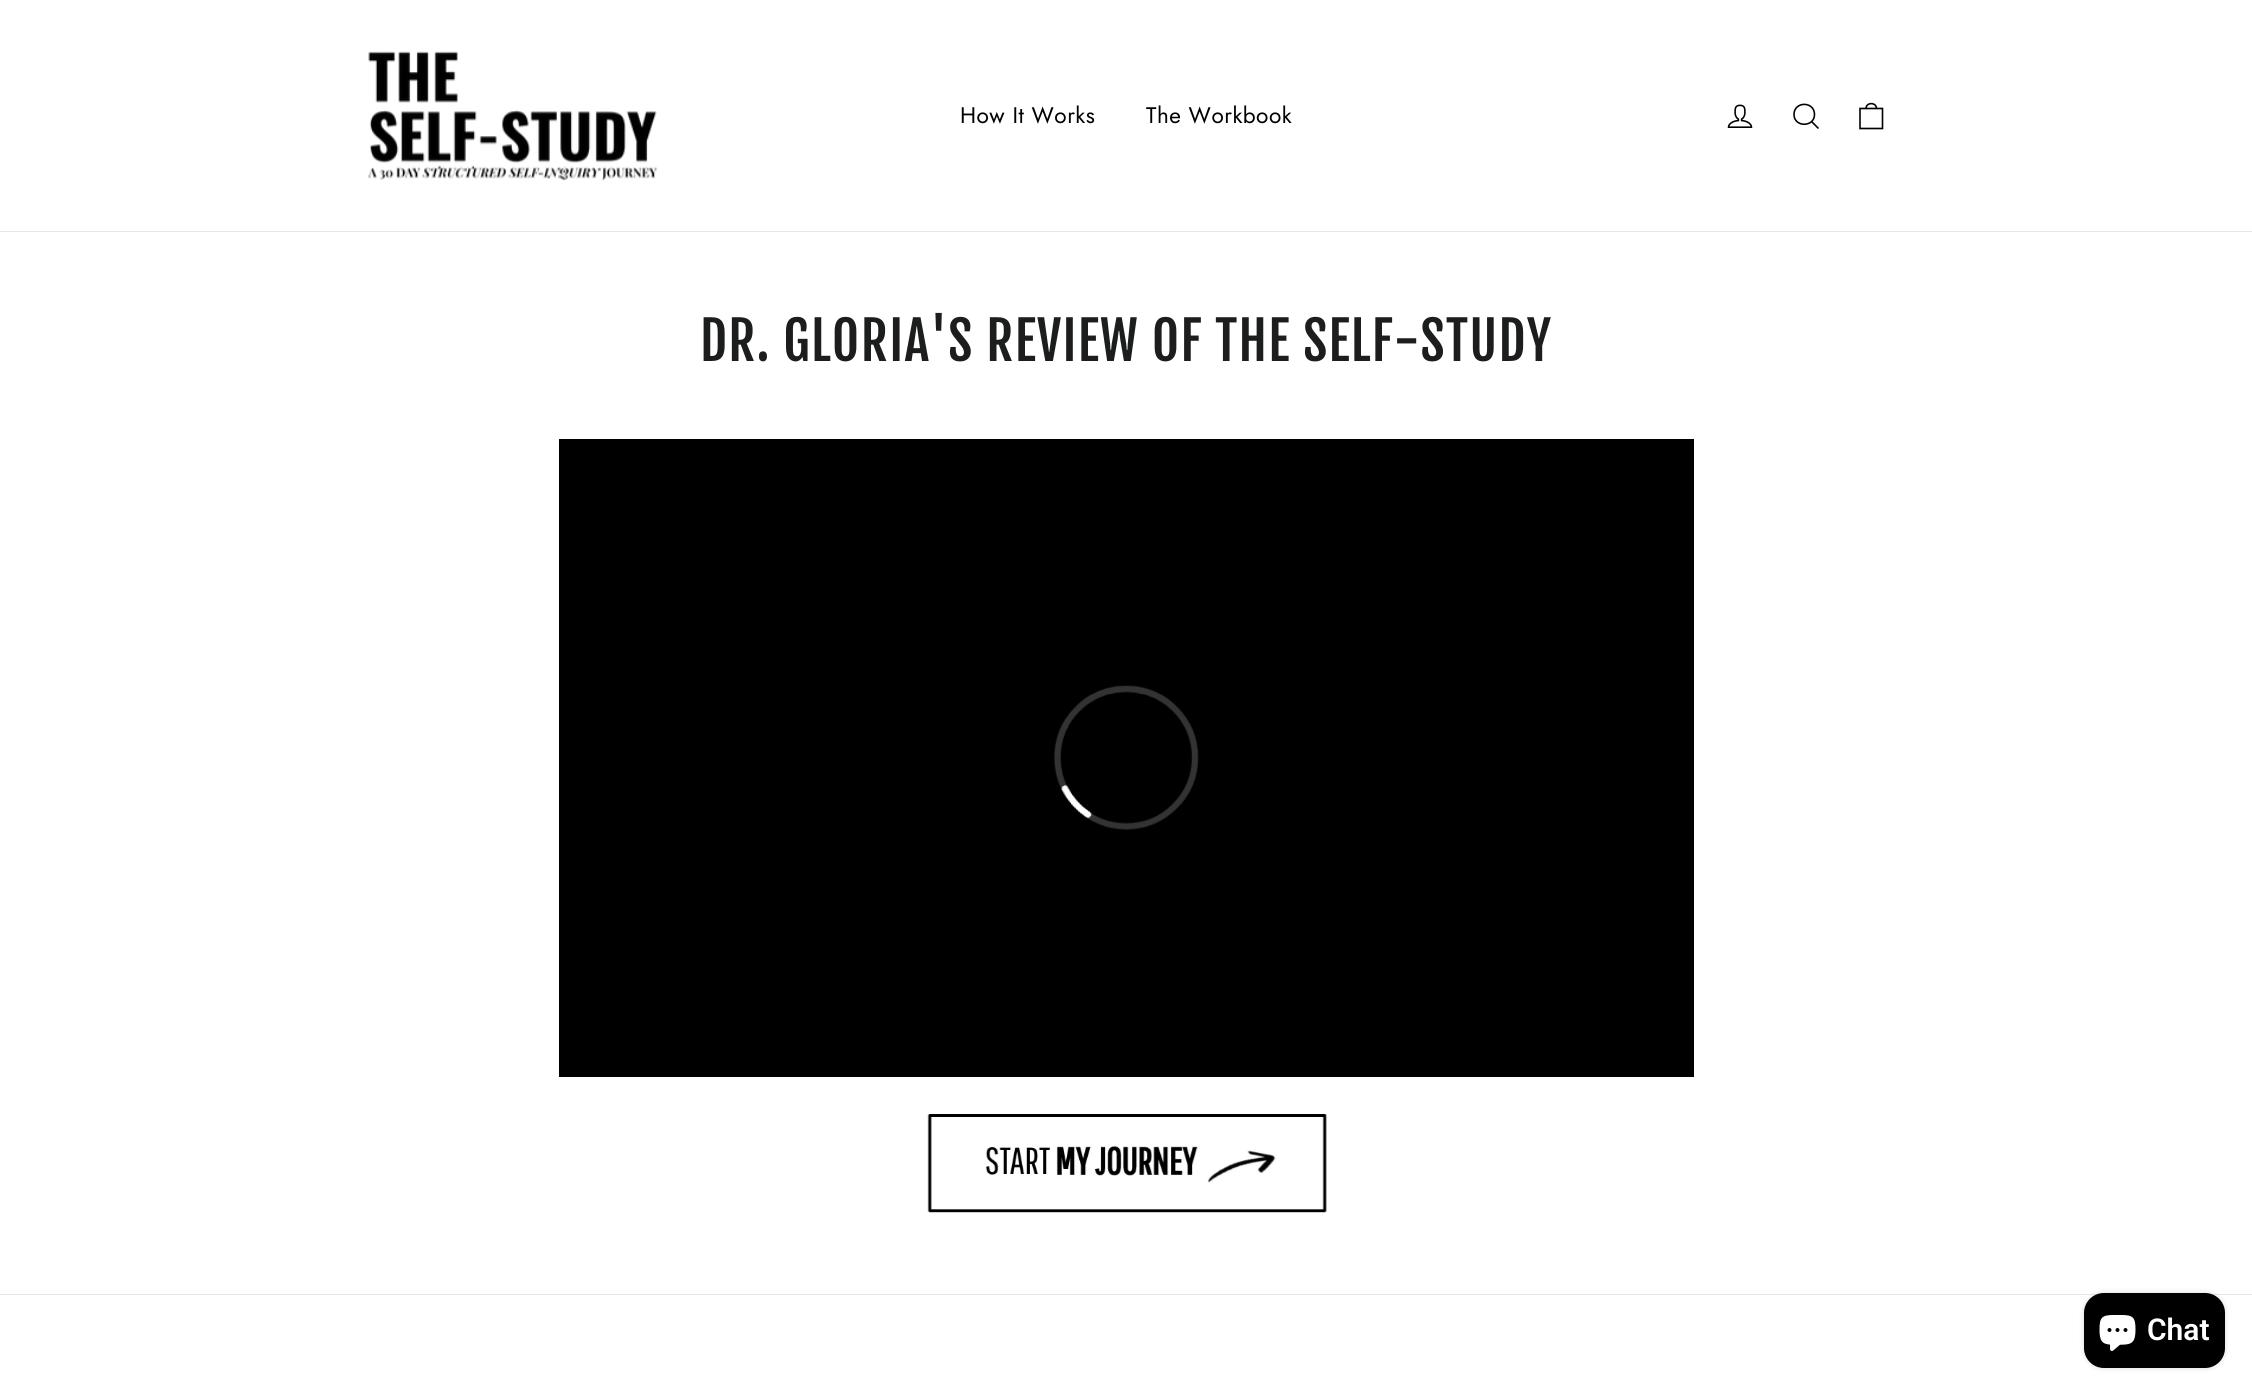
#include <cairo/cairo.h>
#include <math.h>
#include <stddef.h>

static cairo_t *cr;

static void rgb(unsigned color)
{
	cairo_set_source_rgb(cr, (color >> 16) / 255.0, (color >> 8 & 255) / 255.0, (color & 255) / 255.0);
}

static void tracked(double x, double y, const char *s, double letter, double word)
{
	cairo_move_to(cr, x, y);
	while (*s) {
		char ch[5] = {0};
		int n = 0;
		do ch[n++] = *s++; while ((*s & 0xC0) == 0x80);
		cairo_show_text(cr, ch);
		cairo_rel_move_to(cr, letter + word * (*ch == ' '), 0);
	}
}

static void rrect(double x, double y, double w, double h, double r)
{
	cairo_new_sub_path(cr);
	cairo_arc(cr, x + w - r, y + h - r, r, 0, M_PI / 2);
	cairo_arc(cr, x + r, y + h - r, r, M_PI / 2, M_PI);
	cairo_arc(cr, x + r, y + r, r, M_PI, 1.5 * M_PI);
	cairo_arc(cr, x + w - r, y + r, r, 1.5 * M_PI, 2 * M_PI);
	cairo_close_path(cr);
}

static void soft_shadow(double x, double y, double w, double h, double r, double blur, double alpha)
{
	cairo_push_group_with_content(cr, CAIRO_CONTENT_ALPHA);
	cairo_set_operator(cr, CAIRO_OPERATOR_SOURCE);
	for (int i = 15; i >= -15 && fmin(w, h) + blur * i / 3 > 0; i -= 2) {
		double e = blur * i / 6;
		cairo_set_source_rgba(cr, 0, 0, 0, alpha * erfc((i - 1) / 8.5) / 2);
		rrect(x - e, y - e, w + 2 * e, h + 2 * e, fmax(0, fmin(r + e + blur * .6, fmin(w, h) / 2 + e)));
		cairo_fill(cr);
	}
	cairo_pattern_t *soft = cairo_pop_group(cr);
	cairo_mask(cr, soft);
	cairo_pattern_destroy(soft);
}

static void image(const char *path, double x, double y, double w, double h)
{
	cairo_surface_t *image = cairo_image_surface_create_from_png(path);
	cairo_save(cr);
	cairo_set_source_surface(cr, image, x, y);
	cairo_rectangle(cr, x, y, w, h);
	cairo_fill(cr);
	cairo_restore(cr);
	cairo_surface_destroy(image);
}

int main(void) {
	cairo_surface_t *surface = cairo_image_surface_create(CAIRO_FORMAT_RGB24, 2252, 1393);
	cr = cairo_create(surface);
	cairo_font_options_t *options = cairo_font_options_create();
	cairo_font_options_set_hint_metrics(options, CAIRO_HINT_METRICS_OFF);
	cairo_font_options_set_hint_style(options, CAIRO_HINT_STYLE_NONE);
	cairo_set_font_options(cr, options);
	cairo_set_miter_limit(cr, 4);
	rgb(0xffffff);
	cairo_paint(cr);
	rgb(0xe8e8e1);
	cairo_rectangle(cr, 0, 231, 2252, 1);
	cairo_fill(cr);
	image("img/1.png", 368, 51, 289, 130);
	image("img/2.png", 1727, 104, 26, 24);
	cairo_new_path(cr);
	cairo_move_to(cr, 1814.5, 114.5);
	cairo_curve_to(cr, 1814.5, 127.5, 1794, 127.5, 1794, 114.5);
	cairo_curve_to(cr, 1794, 101, 1814.5, 101, 1814.5, 114.5);
	cairo_close_path(cr);
	cairo_move_to(cr, 1818.5, 128.5);
	cairo_line_to(cr, 1811.5, 121.5);
	rgb(0x000000);
	cairo_set_line_width(cr, 1.6);
	cairo_stroke(cr);
	cairo_new_path(cr);
	cairo_move_to(cr, 1860, 108.5);
	cairo_line_to(cr, 1882.5, 108.5);
	cairo_line_to(cr, 1882.5, 128.5);
	cairo_line_to(cr, 1860, 128.5);
	cairo_close_path(cr);
	cairo_move_to(cr, 1866, 108.5);
	cairo_curve_to(cr, 1866, 102, 1876.5, 102, 1876.5, 108.5);
	cairo_stroke(cr);
	image("img/3.png", 559, 439, 1135, 638);
	image("img/4.png", 927, 1114, 400, 99);
	rgb(0xe8e8e1);
	cairo_rectangle(cr, 0, 1294, 2252, 1);
	cairo_fill(cr);
	rgb(0x000000);
	soft_shadow(2084, 1293, 141, 75, 20, 3, 0.15);
	rgb(0x000000);
	rrect(2084, 1293, 141, 75, 20);
	cairo_fill(cr);
	image("img/5.png", 2099, 1315, 37, 36);
	cairo_select_font_face(cr, "Jost", CAIRO_FONT_SLANT_NORMAL, CAIRO_FONT_WEIGHT_NORMAL);
	cairo_set_font_size(cr, 22.5);
	tracked(960, 123, "How It Works", 0.5, 0);
	tracked(1146, 123, "The Workbook", 0.5, 0);
	cairo_select_font_face(cr, "Fjalla One", CAIRO_FONT_SLANT_NORMAL, CAIRO_FONT_WEIGHT_NORMAL);
	cairo_set_font_size(cr, 52.5);
	rgb(0x1c1d1d);
	tracked(700, 361, "DR. GLORIA'S REVIEW OF THE SELF-STUDY", 1.3, 0);
	cairo_select_font_face(cr, "Roboto SemiBold", CAIRO_FONT_SLANT_NORMAL, CAIRO_FONT_WEIGHT_NORMAL);
	cairo_set_font_size(cr, 30);
	rgb(0xffffff);
	cairo_move_to(cr, 2147, 1340);
	cairo_show_text(cr, "Chat");
	cairo_surface_write_to_png(surface, "page.png");
	cairo_font_options_destroy(options);
	cairo_destroy(cr);
	cairo_surface_destroy(surface);
	return 0;
}
